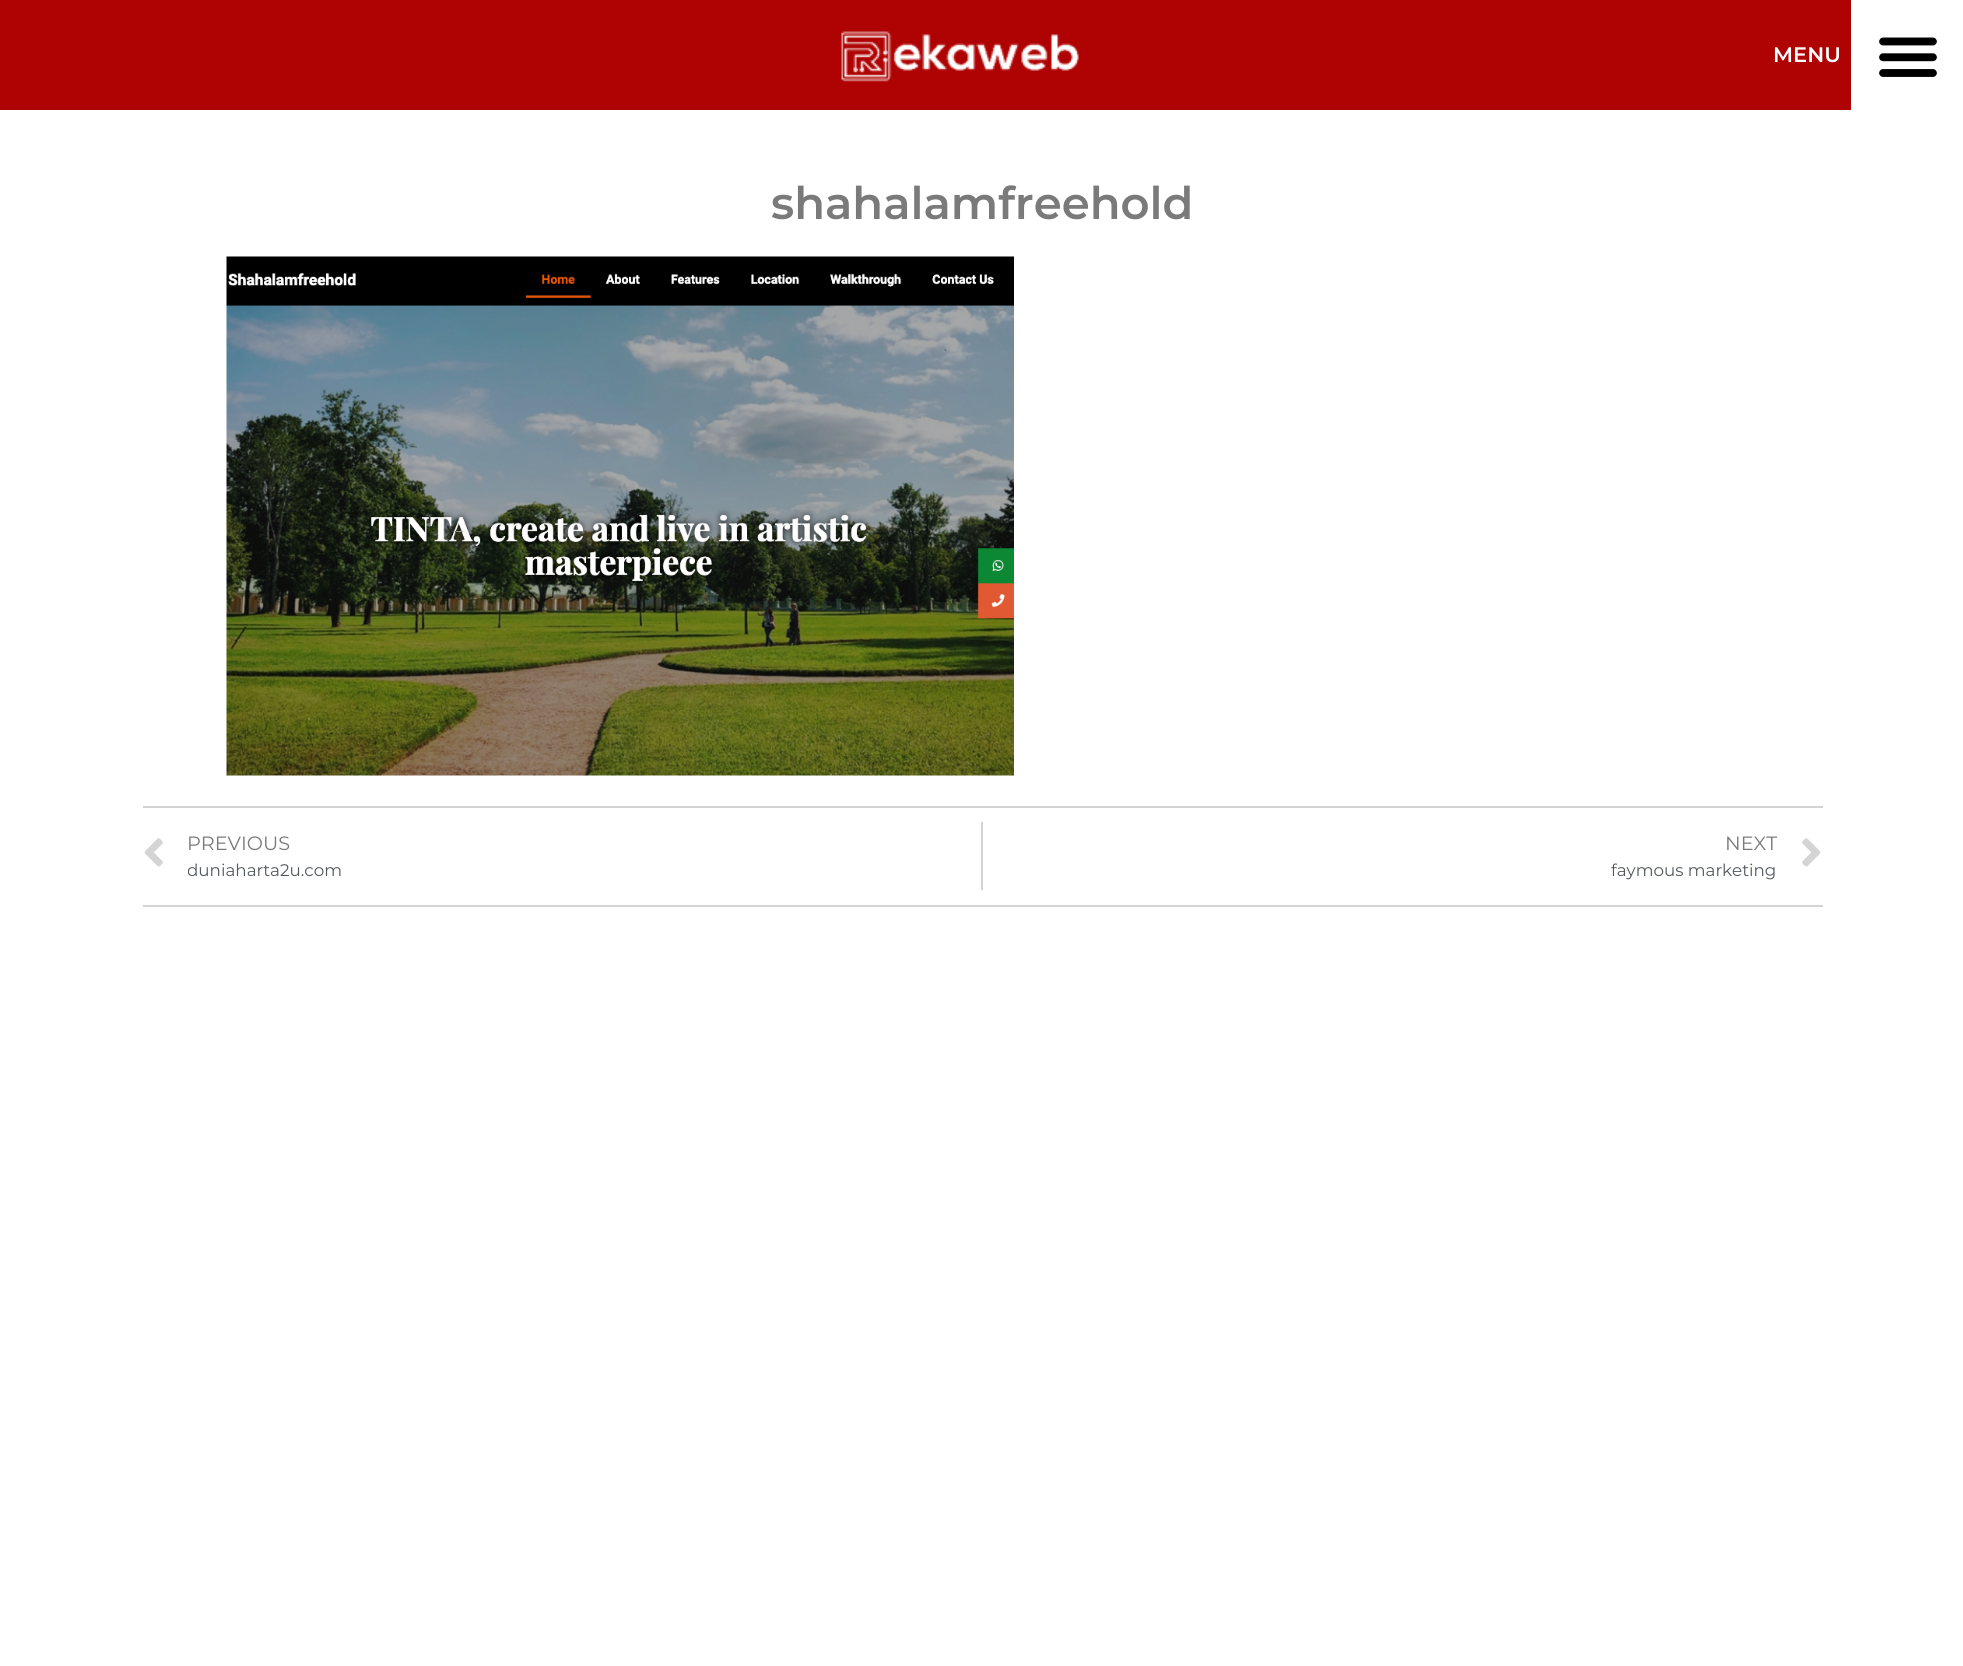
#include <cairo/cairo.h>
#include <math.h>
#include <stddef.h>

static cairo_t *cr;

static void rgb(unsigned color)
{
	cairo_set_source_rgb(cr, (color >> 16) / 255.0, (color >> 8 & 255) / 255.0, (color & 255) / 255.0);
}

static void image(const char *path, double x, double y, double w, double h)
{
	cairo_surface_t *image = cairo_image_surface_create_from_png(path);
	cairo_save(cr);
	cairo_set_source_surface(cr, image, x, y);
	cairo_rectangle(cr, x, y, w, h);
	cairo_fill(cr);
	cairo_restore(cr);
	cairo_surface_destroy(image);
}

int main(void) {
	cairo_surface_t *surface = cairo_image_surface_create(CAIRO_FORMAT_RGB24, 1963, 1666);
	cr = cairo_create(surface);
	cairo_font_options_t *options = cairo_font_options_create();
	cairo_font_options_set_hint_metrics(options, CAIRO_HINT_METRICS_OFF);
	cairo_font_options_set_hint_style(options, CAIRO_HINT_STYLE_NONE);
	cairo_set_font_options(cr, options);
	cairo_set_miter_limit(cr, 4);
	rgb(0xffffff);
	cairo_paint(cr);
	rgb(0xaf0303);
	cairo_rectangle(cr, 0, 0, 1851, 110);
	cairo_fill(cr);
	image("img/1.png", 841, 31, 238, 51);
	image("img/2.png", 1879, 37, 58, 40);
	image("img/3.png", 226, 256, 788, 520);
	rgb(0xd4d4d4);
	cairo_rectangle(cr, 143, 806, 1680, 2);
	cairo_fill(cr);
	cairo_rectangle(cr, 143, 905, 1680, 2);
	cairo_fill(cr);
	image("img/4.png", 144, 838, 19, 29);
	cairo_rectangle(cr, 981, 822, 2, 68);
	cairo_fill(cr);
	image("img/5.png", 1802, 838, 19, 29);
	cairo_select_font_face(cr, "Montserrat SemiBold", CAIRO_FONT_SLANT_NORMAL, CAIRO_FONT_WEIGHT_NORMAL);
	cairo_set_font_size(cr, 21);
	rgb(0xffffff);
	cairo_move_to(cr, 1773, 62);
	cairo_show_text(cr, "MENU");
	cairo_set_font_size(cr, 45);
	rgb(0x7a7a7a);
	cairo_move_to(cr, 771, 219);
	cairo_show_text(cr, "shahalamfreehold");
	cairo_select_font_face(cr, "Montserrat", CAIRO_FONT_SLANT_NORMAL, CAIRO_FONT_WEIGHT_NORMAL);
	cairo_set_font_size(cr, 19.25);
	cairo_move_to(cr, 187, 850);
	cairo_show_text(cr, "PREVIOUS");
	cairo_save(cr);
	cairo_rectangle(cr, 188, 858, 154, 26);
	cairo_clip(cr);
	cairo_set_font_size(cr, 16.75);
	rgb(0x54595f);
	cairo_move_to(cr, 187, 876);
	cairo_show_text(cr, "duniaharta2u.com");
	cairo_restore(cr);
	cairo_move_to(cr, 1725, 850);
	cairo_show_text(cr, "NEXT");
	cairo_set_font_size(cr, 16.75);
	rgb(0x54595f);
	cairo_move_to(cr, 1611, 876);
	cairo_show_text(cr, "faymous marketing");
	cairo_surface_write_to_png(surface, "page.png");
	cairo_font_options_destroy(options);
	cairo_destroy(cr);
	cairo_surface_destroy(surface);
	return 0;
}
